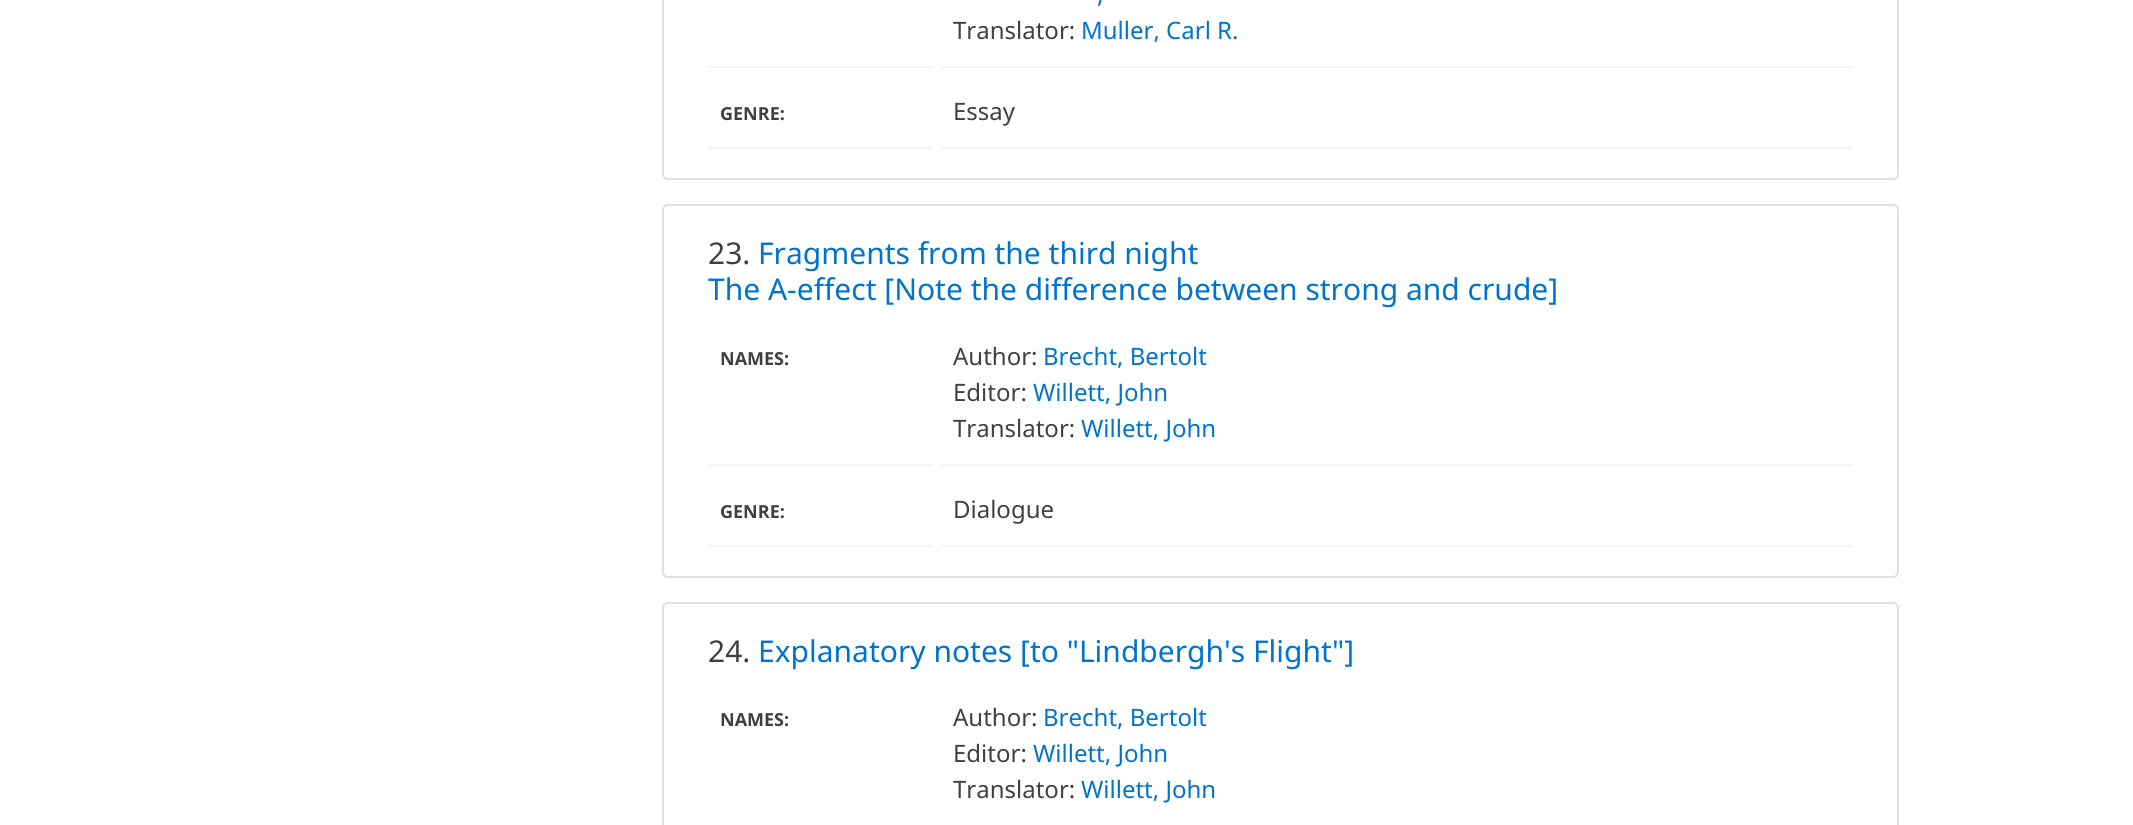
#include <cairo/cairo.h>
#include <math.h>
#include <stddef.h>

typedef struct { double x, y, w, h; unsigned color; } box_t;
static cairo_t *cr;

static void rgb(unsigned color)
{
	cairo_set_source_rgb(cr, (color >> 16) / 255.0, (color >> 8 & 255) / 255.0, (color & 255) / 255.0);
}

static void rrect(double x, double y, double w, double h, double r)
{
	cairo_new_sub_path(cr);
	cairo_arc(cr, x + w - r, y + h - r, r, 0, M_PI / 2);
	cairo_arc(cr, x + r, y + h - r, r, M_PI / 2, M_PI);
	cairo_arc(cr, x + r, y + r, r, M_PI, 1.5 * M_PI);
	cairo_arc(cr, x + w - r, y + r, r, 1.5 * M_PI, 2 * M_PI);
	cairo_close_path(cr);
}

int main(void) {
	cairo_surface_t *surface = cairo_image_surface_create(CAIRO_FORMAT_RGB24, 2133, 825);
	cr = cairo_create(surface);
	cairo_font_options_t *options = cairo_font_options_create();
	cairo_font_options_set_hint_metrics(options, CAIRO_HINT_METRICS_OFF);
	cairo_font_options_set_hint_style(options, CAIRO_HINT_STYLE_NONE);
	cairo_set_font_options(cr, options);
	cairo_set_miter_limit(cr, 4);
	rgb(0xffffff);
	cairo_paint(cr);
	rrect(663, -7, 1235, 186, 5);
	rgb(0xe0e0e0);
	cairo_stroke(cr);
	{
		static const box_t items[] = {
			{941, 66, 912, 2, 0xf5f5f5},
			{708, 66, 225, 2, 0xf5f5f5},
			{708, 147, 225, 2, 0xf5f5f5},
			{941, 147, 912, 2, 0xf5f5f5},
		};
		for (size_t i = 0; i < sizeof items / sizeof *items; i++) {
			rgb(items[i].color);
			cairo_rectangle(cr, items[i].x, items[i].y, items[i].w, items[i].h);
			cairo_fill(cr);
		}
	}
	rrect(663, 205, 1235, 372, 5);
	rgb(0xe0e0e0);
	cairo_stroke(cr);
	{
		static const box_t items[] = {
			{708, 464, 225, 2, 0xf5f5f5},
			{941, 464, 912, 2, 0xf5f5f5},
			{708, 545, 225, 2, 0xf5f5f5},
			{941, 545, 912, 2, 0xf5f5f5},
		};
		for (size_t i = 0; i < sizeof items / sizeof *items; i++) {
			rgb(items[i].color);
			cairo_rectangle(cr, items[i].x, items[i].y, items[i].w, items[i].h);
			cairo_fill(cr);
		}
	}
	rrect(663, 603, 1235, 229, 5);
	rgb(0xe0e0e0);
	cairo_stroke(cr);
	cairo_select_font_face(cr, "Noto Sans", CAIRO_FONT_SLANT_NORMAL, CAIRO_FONT_WEIGHT_NORMAL);
	cairo_set_font_size(cr, 24);
	rgb(0x0073ce);
	cairo_move_to(cr, 1097, 3);
	cairo_show_text(cr, ",");
	rgb(0x404040);
	cairo_move_to(cr, 953, 39);
	cairo_show_text(cr, "Translator:");
	rgb(0x0073ce);
	cairo_move_to(cr, 1081, 39);
	cairo_show_text(cr, "Muller, Carl R.");
	cairo_select_font_face(cr, "Noto Sans", CAIRO_FONT_SLANT_NORMAL, CAIRO_FONT_WEIGHT_BOLD);
	cairo_set_font_size(cr, 18);
	rgb(0x404040);
	cairo_move_to(cr, 720, 120);
	cairo_show_text(cr, "GENRE:");
	cairo_select_font_face(cr, "Noto Sans", CAIRO_FONT_SLANT_NORMAL, CAIRO_FONT_WEIGHT_NORMAL);
	cairo_set_font_size(cr, 24);
	cairo_move_to(cr, 953, 120);
	cairo_show_text(cr, "Essay");
	cairo_set_font_size(cr, 30);
	cairo_move_to(cr, 708, 264);
	cairo_show_text(cr, "23.");
	rgb(0x0073ce);
	cairo_move_to(cr, 758, 264);
	cairo_show_text(cr, "Fragments from the third night");
	cairo_move_to(cr, 708, 300);
	cairo_show_text(cr, "The A-effect [Note the difference between strong and crude]");
	cairo_select_font_face(cr, "Noto Sans", CAIRO_FONT_SLANT_NORMAL, CAIRO_FONT_WEIGHT_BOLD);
	cairo_set_font_size(cr, 18);
	rgb(0x404040);
	cairo_move_to(cr, 720, 365);
	cairo_show_text(cr, "NAMES:");
	cairo_select_font_face(cr, "Noto Sans", CAIRO_FONT_SLANT_NORMAL, CAIRO_FONT_WEIGHT_NORMAL);
	cairo_set_font_size(cr, 24);
	cairo_move_to(cr, 953, 365);
	cairo_show_text(cr, "Author:");
	rgb(0x0073ce);
	cairo_move_to(cr, 1043, 365);
	cairo_show_text(cr, "Brecht, Bertolt");
	rgb(0x404040);
	cairo_move_to(cr, 953, 401);
	cairo_show_text(cr, "Editor:");
	rgb(0x0073ce);
	cairo_move_to(cr, 1033, 401);
	cairo_show_text(cr, "Willett, John");
	rgb(0x404040);
	cairo_move_to(cr, 953, 437);
	cairo_show_text(cr, "Translator:");
	rgb(0x0073ce);
	cairo_move_to(cr, 1081, 437);
	cairo_show_text(cr, "Willett, John");
	cairo_select_font_face(cr, "Noto Sans", CAIRO_FONT_SLANT_NORMAL, CAIRO_FONT_WEIGHT_BOLD);
	cairo_set_font_size(cr, 18);
	rgb(0x404040);
	cairo_move_to(cr, 720, 518);
	cairo_show_text(cr, "GENRE:");
	cairo_select_font_face(cr, "Noto Sans", CAIRO_FONT_SLANT_NORMAL, CAIRO_FONT_WEIGHT_NORMAL);
	cairo_set_font_size(cr, 24);
	cairo_move_to(cr, 953, 518);
	cairo_show_text(cr, "Dialogue");
	cairo_set_font_size(cr, 30);
	cairo_move_to(cr, 708, 662);
	cairo_show_text(cr, "24.");
	rgb(0x0073ce);
	cairo_move_to(cr, 758, 662);
	cairo_show_text(cr, "Explanatory notes [to \"Lindbergh's Flight\"]");
	cairo_select_font_face(cr, "Noto Sans", CAIRO_FONT_SLANT_NORMAL, CAIRO_FONT_WEIGHT_BOLD);
	cairo_set_font_size(cr, 18);
	rgb(0x404040);
	cairo_move_to(cr, 720, 726);
	cairo_show_text(cr, "NAMES:");
	cairo_select_font_face(cr, "Noto Sans", CAIRO_FONT_SLANT_NORMAL, CAIRO_FONT_WEIGHT_NORMAL);
	cairo_set_font_size(cr, 24);
	cairo_move_to(cr, 953, 726);
	cairo_show_text(cr, "Author:");
	rgb(0x0073ce);
	cairo_move_to(cr, 1043, 726);
	cairo_show_text(cr, "Brecht, Bertolt");
	rgb(0x404040);
	cairo_move_to(cr, 953, 762);
	cairo_show_text(cr, "Editor:");
	rgb(0x0073ce);
	cairo_move_to(cr, 1033, 762);
	cairo_show_text(cr, "Willett, John");
	rgb(0x404040);
	cairo_move_to(cr, 953, 798);
	cairo_show_text(cr, "Translator:");
	rgb(0x0073ce);
	cairo_move_to(cr, 1081, 798);
	cairo_show_text(cr, "Willett, John");
	cairo_surface_write_to_png(surface, "page.png");
	cairo_font_options_destroy(options);
	cairo_destroy(cr);
	cairo_surface_destroy(surface);
	return 0;
}
